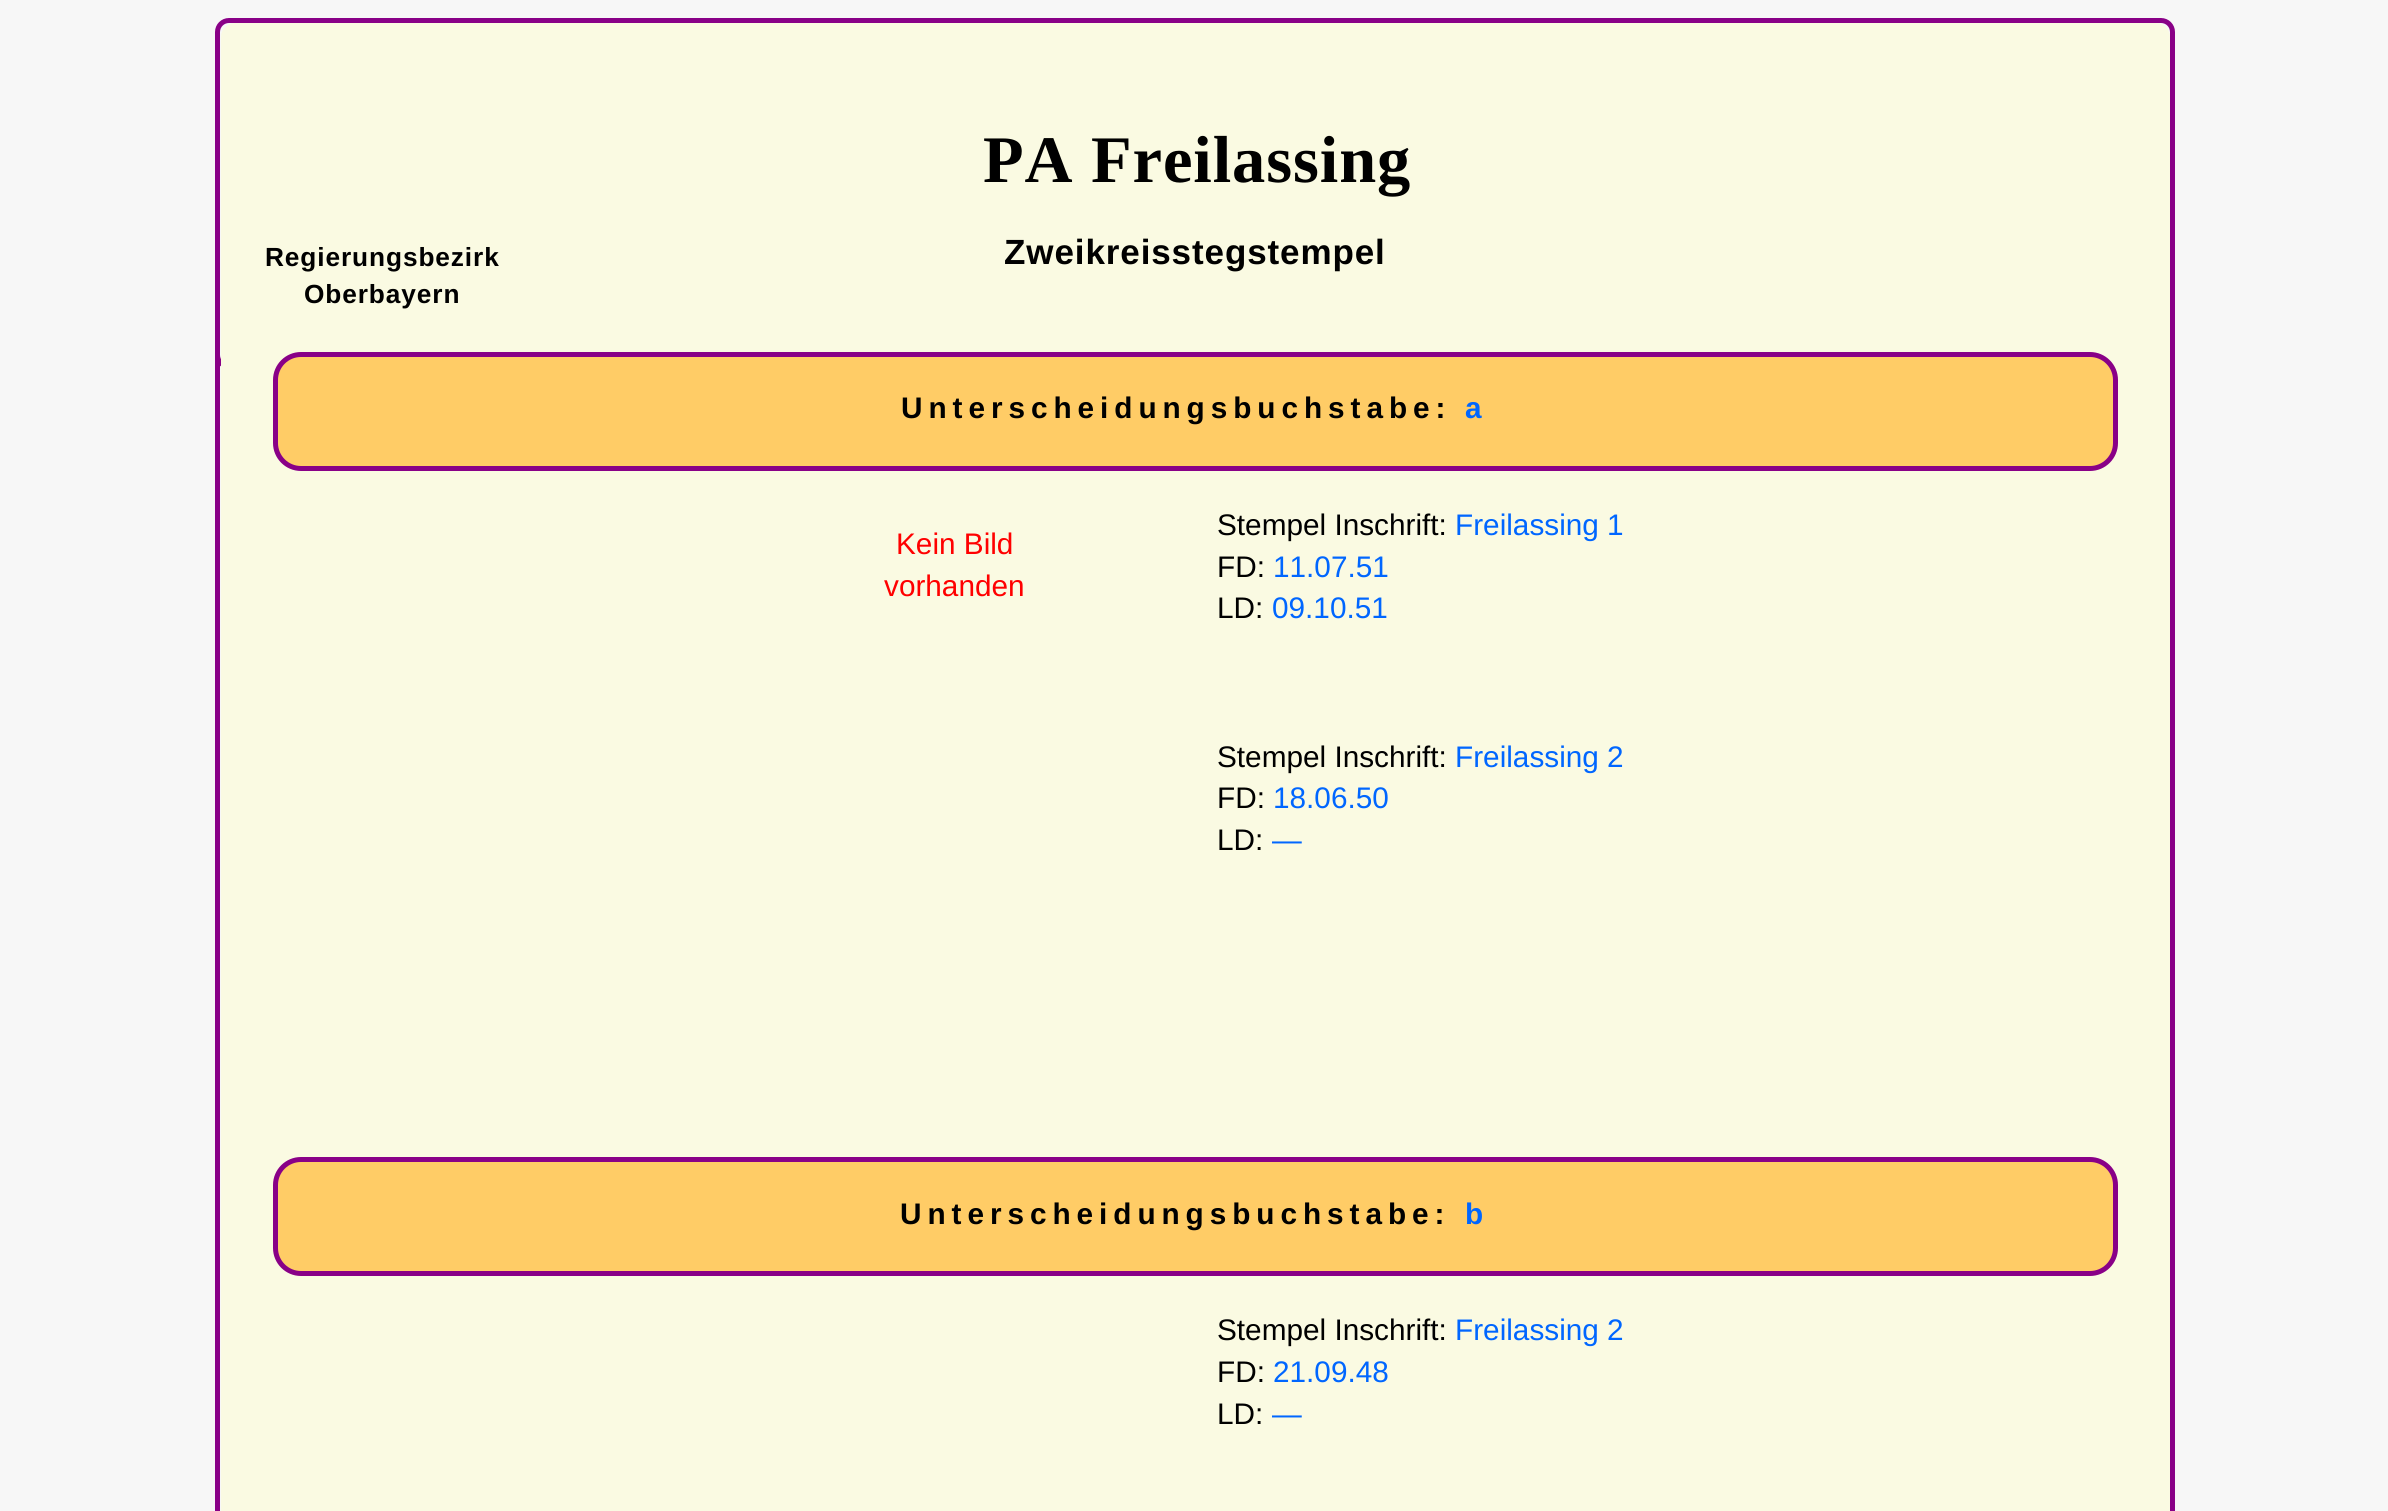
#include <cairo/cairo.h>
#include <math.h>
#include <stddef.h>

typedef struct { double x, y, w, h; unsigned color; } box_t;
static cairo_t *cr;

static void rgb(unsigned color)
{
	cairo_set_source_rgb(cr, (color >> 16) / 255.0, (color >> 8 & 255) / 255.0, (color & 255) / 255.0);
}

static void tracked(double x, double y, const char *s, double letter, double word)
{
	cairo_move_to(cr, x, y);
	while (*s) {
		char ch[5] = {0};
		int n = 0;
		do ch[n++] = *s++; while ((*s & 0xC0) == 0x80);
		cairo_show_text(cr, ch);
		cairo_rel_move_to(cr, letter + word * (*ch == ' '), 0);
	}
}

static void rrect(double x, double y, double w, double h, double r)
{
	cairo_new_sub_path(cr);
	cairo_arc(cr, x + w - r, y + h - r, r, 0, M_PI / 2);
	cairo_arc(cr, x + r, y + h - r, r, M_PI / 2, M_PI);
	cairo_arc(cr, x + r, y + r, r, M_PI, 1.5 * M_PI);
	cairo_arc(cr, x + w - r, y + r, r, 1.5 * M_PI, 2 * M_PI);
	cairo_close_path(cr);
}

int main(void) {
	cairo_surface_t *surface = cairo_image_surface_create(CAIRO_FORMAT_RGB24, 2388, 1511);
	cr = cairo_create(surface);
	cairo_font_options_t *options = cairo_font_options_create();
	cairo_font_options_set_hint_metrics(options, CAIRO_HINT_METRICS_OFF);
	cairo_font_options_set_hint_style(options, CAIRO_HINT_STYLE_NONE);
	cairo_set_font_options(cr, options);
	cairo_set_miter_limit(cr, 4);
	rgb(0xf7f7f7);
	cairo_paint(cr);
	rrect(217.5, 20.5, 1955, 346, 11.5);
	rgb(0x890087);
	cairo_set_line_width(cr, 5);
	cairo_stroke(cr);
	rgb(0xfafae2);
	rrect(221, 23, 1949, 341, 14);
	cairo_fill(cr);
	{
		static const box_t items[] = {
			{221, 351, 1949, 1160, 0xfafae2},
			{2170, 355, 5, 1156, 0x890087},
			{215, 355, 5, 1156, 0x890087},
		};
		for (size_t i = 0; i < sizeof items / sizeof *items; i++) {
			rgb(items[i].color);
			cairo_rectangle(cr, items[i].x, items[i].y, items[i].w, items[i].h);
			cairo_fill(cr);
		}
	}
	rgb(0xffcc66);
	rrect(275.5, 354.5, 1840, 114, 25.5);
	cairo_fill_preserve(cr);
	rgb(0x890087);
	cairo_stroke(cr);
	rgb(0xffcc66);
	rrect(275.5, 1159.5, 1840, 114, 25.5);
	cairo_fill_preserve(cr);
	rgb(0x890087);
	cairo_stroke(cr);
	cairo_select_font_face(cr, "Liberation Sans", CAIRO_FONT_SLANT_NORMAL, CAIRO_FONT_WEIGHT_BOLD);
	cairo_set_font_size(cr, 26.25);
	rgb(0x000000);
	tracked(265, 266, "Regierungsbezirk", 0.9, 0);
	tracked(304, 303, "Oberbayern", 0.9, 0);
	cairo_select_font_face(cr, "Liberation Serif", CAIRO_FONT_SLANT_NORMAL, CAIRO_FONT_WEIGHT_BOLD);
	cairo_set_font_size(cr, 66.5);
	tracked(983, 182, "PA Freilassing", 0.9, 0);
	cairo_select_font_face(cr, "Liberation Sans", CAIRO_FONT_SLANT_NORMAL, CAIRO_FONT_WEIGHT_BOLD);
	cairo_set_font_size(cr, 35);
	tracked(1004, 264, "Zweikreisstegstempel", 0.9, 0);
	cairo_set_font_size(cr, 29.75);
	tracked(901, 418, "Unterscheidungsbuchstabe:", 5.95, 0);
	rgb(0x0066ff);
	tracked(1465, 418, "a", 5.95, 0);
	cairo_select_font_face(cr, "Liberation Sans", CAIRO_FONT_SLANT_NORMAL, CAIRO_FONT_WEIGHT_NORMAL);
	rgb(0xff0000);
	cairo_move_to(cr, 896, 554);
	cairo_show_text(cr, "Kein Bild");
	cairo_move_to(cr, 884, 596);
	cairo_show_text(cr, "vorhanden");
	rgb(0x000000);
	cairo_move_to(cr, 1217, 535);
	cairo_show_text(cr, "Stempel Inschrift:");
	rgb(0x0066ff);
	cairo_move_to(cr, 1455, 535);
	cairo_show_text(cr, "Freilassing 1");
	rgb(0x000000);
	cairo_move_to(cr, 1217, 577);
	cairo_show_text(cr, "FD:");
	rgb(0x0066ff);
	cairo_move_to(cr, 1273, 577);
	cairo_show_text(cr, "11.07.51");
	rgb(0x000000);
	cairo_move_to(cr, 1217, 618);
	cairo_show_text(cr, "LD:");
	rgb(0x0066ff);
	cairo_move_to(cr, 1272, 618);
	cairo_show_text(cr, "09.10.51");
	rgb(0x000000);
	cairo_move_to(cr, 1217, 767);
	cairo_show_text(cr, "Stempel Inschrift:");
	rgb(0x0066ff);
	cairo_move_to(cr, 1455, 767);
	cairo_show_text(cr, "Freilassing 2");
	rgb(0x000000);
	cairo_move_to(cr, 1217, 808);
	cairo_show_text(cr, "FD:");
	rgb(0x0066ff);
	cairo_move_to(cr, 1273, 808);
	cairo_show_text(cr, "18.06.50");
	rgb(0x000000);
	cairo_move_to(cr, 1217, 850);
	cairo_show_text(cr, "LD:");
	rgb(0x0066ff);
	cairo_move_to(cr, 1272, 850);
	cairo_show_text(cr, "—");
	cairo_select_font_face(cr, "Liberation Sans", CAIRO_FONT_SLANT_NORMAL, CAIRO_FONT_WEIGHT_BOLD);
	rgb(0x000000);
	tracked(900, 1224, "Unterscheidungsbuchstabe:", 5.95, 0);
	rgb(0x0066ff);
	tracked(1465, 1224, "b", 5.95, 0);
	cairo_select_font_face(cr, "Liberation Sans", CAIRO_FONT_SLANT_NORMAL, CAIRO_FONT_WEIGHT_NORMAL);
	rgb(0x000000);
	cairo_move_to(cr, 1217, 1340);
	cairo_show_text(cr, "Stempel Inschrift:");
	rgb(0x0066ff);
	cairo_move_to(cr, 1455, 1340);
	cairo_show_text(cr, "Freilassing 2");
	rgb(0x000000);
	cairo_move_to(cr, 1217, 1382);
	cairo_show_text(cr, "FD:");
	rgb(0x0066ff);
	cairo_move_to(cr, 1273, 1382);
	cairo_show_text(cr, "21.09.48");
	rgb(0x000000);
	cairo_move_to(cr, 1217, 1424);
	cairo_show_text(cr, "LD:");
	rgb(0x0066ff);
	cairo_move_to(cr, 1272, 1424);
	cairo_show_text(cr, "—");
	cairo_surface_write_to_png(surface, "page.png");
	cairo_font_options_destroy(options);
	cairo_destroy(cr);
	cairo_surface_destroy(surface);
	return 0;
}
